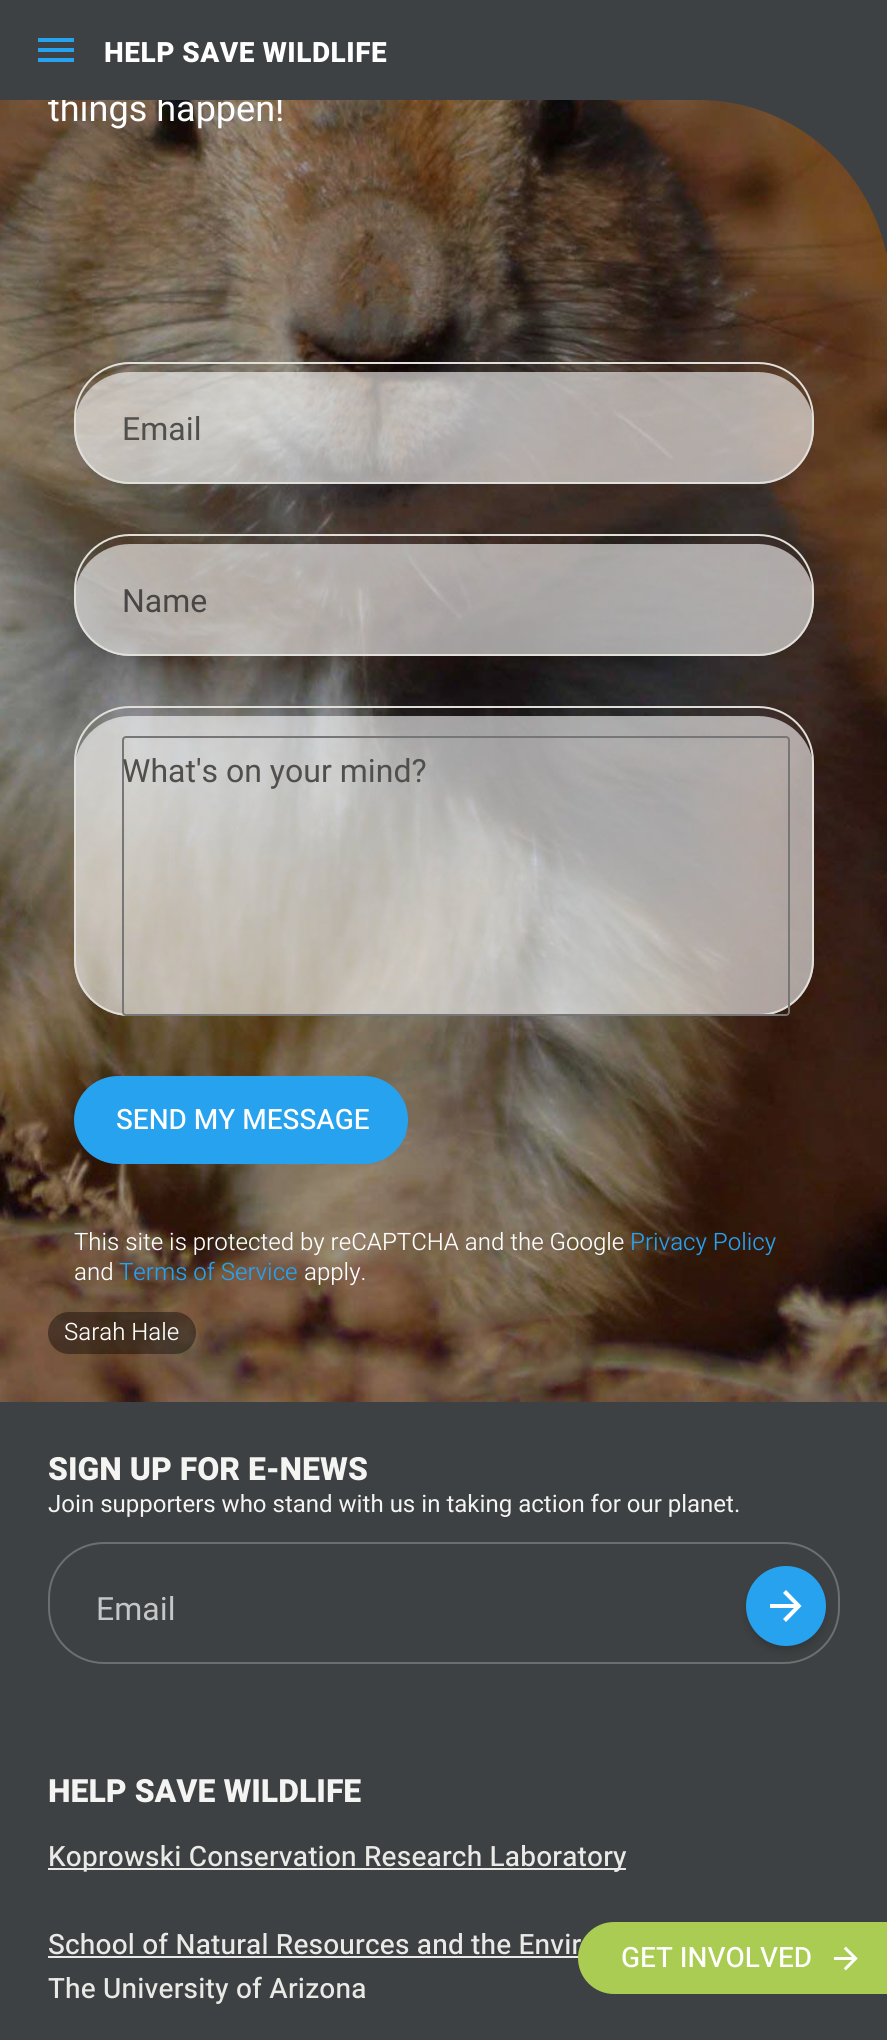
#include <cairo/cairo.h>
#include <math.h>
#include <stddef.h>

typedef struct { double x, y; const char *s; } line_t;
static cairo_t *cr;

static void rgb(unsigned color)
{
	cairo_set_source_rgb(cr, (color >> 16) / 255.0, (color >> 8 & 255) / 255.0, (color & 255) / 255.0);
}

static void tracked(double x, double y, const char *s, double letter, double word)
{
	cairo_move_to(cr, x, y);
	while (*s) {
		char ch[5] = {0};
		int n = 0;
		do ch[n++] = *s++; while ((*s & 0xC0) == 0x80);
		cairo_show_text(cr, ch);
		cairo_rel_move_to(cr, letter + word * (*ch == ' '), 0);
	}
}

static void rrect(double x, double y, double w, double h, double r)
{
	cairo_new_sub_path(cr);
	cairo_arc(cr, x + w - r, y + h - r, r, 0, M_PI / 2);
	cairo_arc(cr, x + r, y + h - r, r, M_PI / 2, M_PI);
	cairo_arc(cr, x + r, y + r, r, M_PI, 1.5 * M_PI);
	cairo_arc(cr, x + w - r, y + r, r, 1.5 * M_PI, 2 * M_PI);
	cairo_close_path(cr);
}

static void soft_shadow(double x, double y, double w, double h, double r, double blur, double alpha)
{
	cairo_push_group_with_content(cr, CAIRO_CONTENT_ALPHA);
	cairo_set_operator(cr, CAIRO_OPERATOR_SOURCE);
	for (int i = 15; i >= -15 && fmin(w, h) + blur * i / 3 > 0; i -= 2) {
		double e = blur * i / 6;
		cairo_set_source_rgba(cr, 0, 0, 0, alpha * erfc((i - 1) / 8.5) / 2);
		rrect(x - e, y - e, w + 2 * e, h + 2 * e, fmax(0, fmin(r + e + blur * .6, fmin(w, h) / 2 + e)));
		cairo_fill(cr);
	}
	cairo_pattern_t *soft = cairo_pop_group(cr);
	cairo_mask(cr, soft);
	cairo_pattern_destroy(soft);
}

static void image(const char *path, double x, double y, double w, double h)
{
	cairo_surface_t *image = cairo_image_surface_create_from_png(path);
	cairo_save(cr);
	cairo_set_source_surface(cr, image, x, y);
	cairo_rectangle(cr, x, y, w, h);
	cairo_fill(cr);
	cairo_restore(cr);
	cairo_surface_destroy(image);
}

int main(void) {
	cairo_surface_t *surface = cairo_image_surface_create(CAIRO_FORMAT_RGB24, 887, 2040);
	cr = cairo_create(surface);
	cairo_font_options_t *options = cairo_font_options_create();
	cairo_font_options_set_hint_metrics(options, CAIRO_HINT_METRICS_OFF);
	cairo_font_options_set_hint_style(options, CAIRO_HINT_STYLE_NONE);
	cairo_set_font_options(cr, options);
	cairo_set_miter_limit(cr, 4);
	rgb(0x3e4143);
	cairo_paint(cr);
	rgb(0x26a2ef);
	cairo_new_path(cr);
	cairo_move_to(cr, 38, 38);
	cairo_line_to(cr, 74, 38);
	cairo_line_to(cr, 74, 42);
	cairo_line_to(cr, 38, 42);
	cairo_close_path(cr);
	cairo_move_to(cr, 38, 48);
	cairo_line_to(cr, 74, 48);
	cairo_line_to(cr, 74, 52);
	cairo_line_to(cr, 38, 52);
	cairo_close_path(cr);
	cairo_move_to(cr, 38, 58);
	cairo_line_to(cr, 74, 58);
	cairo_line_to(cr, 74, 62);
	cairo_line_to(cr, 38, 62);
	cairo_close_path(cr);
	cairo_fill(cr);
	image("img/1.png", 0, 100, 887, 1302);
	rgb(0x3e4143);
	cairo_new_path(cr);
	cairo_move_to(cr, 566, -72);
	cairo_line_to(cr, 566, 100);
	cairo_line_to(cr, 698, 100);
	cairo_curve_to(cr, 790, 100, 867, 165, 886, 252);
	cairo_line_to(cr, 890, 252);
	cairo_line_to(cr, 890, 120);
	cairo_curve_to(cr, 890, 14, 804, -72, 698, -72);
	cairo_close_path(cr);
	cairo_fill(cr);
	cairo_set_source_rgba(cr, 1, 1, 1, 0.6);
	rrect(74, 372, 740, 112, 56);
	cairo_fill(cr);
	rrect(75, 363, 738, 120, 55);
	rgb(0xe0dfda);
	cairo_stroke(cr);
	cairo_set_source_rgba(cr, 1, 1, 1, 0.6);
	rrect(74, 544, 740, 112, 56);
	cairo_fill(cr);
	rrect(75, 535, 738, 120, 55);
	rgb(0xe0dfda);
	cairo_stroke(cr);
	cairo_set_source_rgba(cr, 1, 1, 1, 0.6);
	rrect(74, 716, 740, 300, 56);
	cairo_fill(cr);
	rrect(75, 707, 738, 308, 55);
	rgb(0xe0dfda);
	cairo_stroke(cr);
	rrect(123, 737, 666, 278, 3);
	rgb(0x767676);
	cairo_stroke(cr);
	rgb(0x26a2ef);
	rrect(74, 1076, 334, 88, 44);
	cairo_fill(cr);
	cairo_set_source_rgba(cr, 0, 0, 0, 0.4);
	rrect(48, 1312, 148, 42, 21);
	cairo_fill(cr);
	rrect(49, 1543, 790, 120, 55);
	rgb(0x6c6f70);
	cairo_stroke(cr);
	rgb(0x000000);
	soft_shadow(748, 1574, 76, 76, 38, 5, 0.2);
	rgb(0x26a2ef);
	cairo_arc(cr, 786, 1606, 40, 0, 2 * M_PI);
	cairo_fill(cr);
	rgb(0xffffff);
	cairo_new_path(cr);
	cairo_move_to(cr, 770, 1604);
	cairo_line_to(cr, 770, 1608);
	cairo_line_to(cr, 794, 1608);
	cairo_line_to(cr, 783, 1619);
	cairo_line_to(cr, 786, 1622);
	cairo_line_to(cr, 801.5, 1606);
	cairo_line_to(cr, 786, 1590);
	cairo_line_to(cr, 783, 1593);
	cairo_line_to(cr, 794, 1604);
	cairo_close_path(cr);
	cairo_fill(cr);
	rgb(0xe9e9e5);
	cairo_rectangle(cr, 48, 1868, 578, 2);
	cairo_fill(cr);
	cairo_rectangle(cr, 48, 1956, 531, 2);
	cairo_fill(cr);
	cairo_select_font_face(cr, "Heebo ExtraBold", CAIRO_FONT_SLANT_NORMAL, CAIRO_FONT_WEIGHT_NORMAL);
	cairo_set_font_size(cr, 28);
	rgb(0xffffff);
	tracked(104, 62, "HELP SAVE WILDLIFE", 0.5, 0);
	cairo_select_font_face(cr, "Heebo", CAIRO_FONT_SLANT_NORMAL, CAIRO_FONT_WEIGHT_NORMAL);
	cairo_set_font_size(cr, 36);
	cairo_move_to(cr, 48, 121);
	cairo_show_text(cr, "things happen!");
	rgb(0x3e4143);
	cairo_rectangle(cr, 51, 94, 231, 6);
	cairo_fill(cr);
	cairo_set_font_size(cr, 32);
	rgb(0x504f4c);
	cairo_move_to(cr, 122, 440);
	cairo_show_text(cr, "Email");
	rgb(0x494745);
	cairo_move_to(cr, 122, 612);
	cairo_show_text(cr, "Name");
	rgb(0x504f4c);
	cairo_move_to(cr, 122, 782);
	cairo_show_text(cr, "What's on your mind?");
	cairo_select_font_face(cr, "Heebo Medium", CAIRO_FONT_SLANT_NORMAL, CAIRO_FONT_WEIGHT_NORMAL);
	cairo_set_font_size(cr, 28);
	rgb(0xffffff);
	cairo_move_to(cr, 116, 1129);
	cairo_show_text(cr, "SEND MY MESSAGE");
	cairo_select_font_face(cr, "Heebo Light", CAIRO_FONT_SLANT_NORMAL, CAIRO_FONT_WEIGHT_NORMAL);
	cairo_set_font_size(cr, 24);
	cairo_move_to(cr, 74, 1250);
	cairo_show_text(cr, "This site is protected by reCAPTCHA and the Google");
	rgb(0x26a2ef);
	cairo_move_to(cr, 630, 1250);
	cairo_show_text(cr, "Privacy Policy");
	rgb(0xffffff);
	cairo_move_to(cr, 74, 1280);
	cairo_show_text(cr, "and");
	rgb(0x26a2ef);
	cairo_move_to(cr, 119, 1280);
	cairo_show_text(cr, "Terms of Service");
	rgb(0xffffff);
	cairo_move_to(cr, 304, 1280);
	cairo_show_text(cr, "apply.");
	cairo_move_to(cr, 64, 1340);
	cairo_show_text(cr, "Sarah Hale");
	cairo_select_font_face(cr, "Heebo ExtraBold", CAIRO_FONT_SLANT_NORMAL, CAIRO_FONT_WEIGHT_NORMAL);
	cairo_set_font_size(cr, 32);
	rgb(0xf4f4f2);
	cairo_move_to(cr, 48, 1480);
	cairo_show_text(cr, "SIGN UP FOR E-NEWS");
	cairo_select_font_face(cr, "Heebo", CAIRO_FONT_SLANT_NORMAL, CAIRO_FONT_WEIGHT_NORMAL);
	cairo_set_font_size(cr, 24);
	cairo_move_to(cr, 48, 1512);
	cairo_show_text(cr, "Join supporters who stand with us in taking action for our planet.");
	cairo_set_font_size(cr, 32);
	rgb(0xc5c6c7);
	cairo_move_to(cr, 96, 1620);
	cairo_show_text(cr, "Email");
	cairo_select_font_face(cr, "Heebo ExtraBold", CAIRO_FONT_SLANT_NORMAL, CAIRO_FONT_WEIGHT_NORMAL);
	rgb(0xf4f4f2);
	cairo_move_to(cr, 48, 1802);
	cairo_show_text(cr, "HELP SAVE WILDLIFE");
	cairo_select_font_face(cr, "Heebo Medium", CAIRO_FONT_SLANT_NORMAL, CAIRO_FONT_WEIGHT_NORMAL);
	cairo_set_font_size(cr, 28);
	rgb(0xe9e9e5);
	{
		static const line_t items[] = {
			{48, 1866, "Koprowski Conservation Research Laboratory"},
			{48, 1954, "School of Natural Resources and the Envir"},
			{48, 1998, "The University of Arizona"},
		};
		for (size_t i = 0; i < sizeof items / sizeof *items; i++) {
			tracked(items[i].x, items[i].y, items[i].s, 0.2, 0);
		}
	}
	rgb(0xabcc53);
	rrect(578, 1922, 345, 72, 36);
	cairo_fill(cr);
	rgb(0xffffff);
	cairo_move_to(cr, 621, 1967);
	cairo_show_text(cr, "GET INVOLVED");
	image("img/2.png", 833, 1946, 25, 25);
	cairo_surface_write_to_png(surface, "page.png");
	cairo_font_options_destroy(options);
	cairo_destroy(cr);
	cairo_surface_destroy(surface);
	return 0;
}
